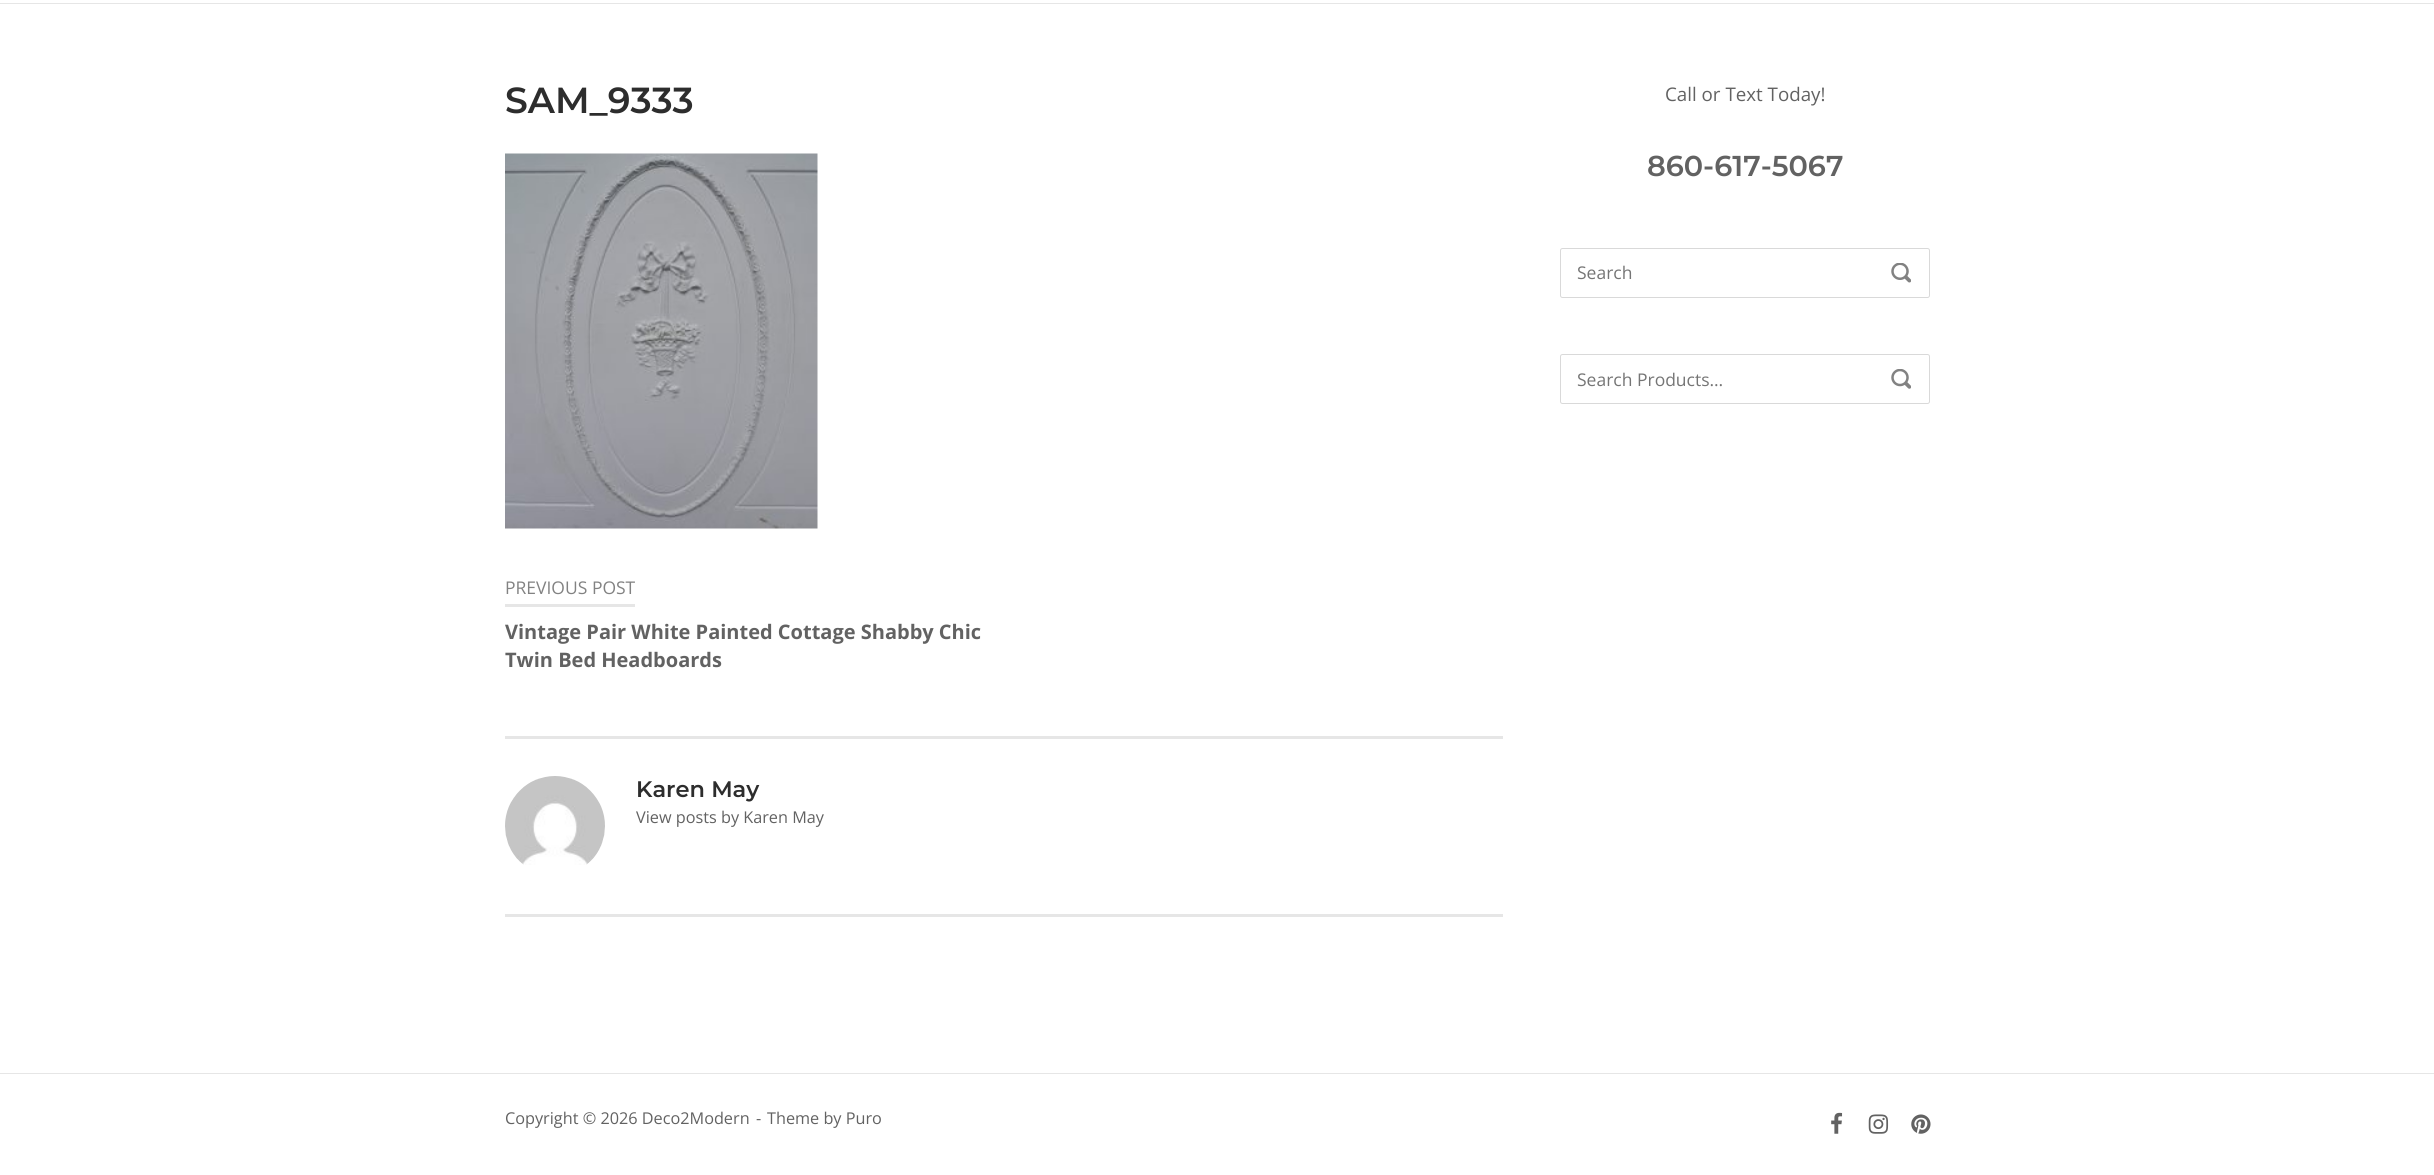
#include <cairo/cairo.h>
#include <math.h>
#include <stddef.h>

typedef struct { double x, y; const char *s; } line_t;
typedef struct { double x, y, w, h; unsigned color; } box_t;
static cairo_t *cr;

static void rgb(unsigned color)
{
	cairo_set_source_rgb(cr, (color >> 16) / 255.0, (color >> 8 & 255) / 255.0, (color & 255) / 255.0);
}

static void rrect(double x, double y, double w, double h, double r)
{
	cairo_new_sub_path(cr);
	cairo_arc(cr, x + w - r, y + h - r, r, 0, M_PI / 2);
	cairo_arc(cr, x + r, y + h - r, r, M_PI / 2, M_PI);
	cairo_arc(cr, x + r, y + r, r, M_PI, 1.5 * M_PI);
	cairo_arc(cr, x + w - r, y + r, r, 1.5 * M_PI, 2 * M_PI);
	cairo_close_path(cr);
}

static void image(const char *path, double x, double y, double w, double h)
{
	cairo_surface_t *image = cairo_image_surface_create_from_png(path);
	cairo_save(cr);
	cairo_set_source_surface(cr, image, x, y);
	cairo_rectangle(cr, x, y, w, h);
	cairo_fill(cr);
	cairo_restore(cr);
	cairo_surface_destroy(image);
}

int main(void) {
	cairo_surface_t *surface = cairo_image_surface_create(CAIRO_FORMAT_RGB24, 2434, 1175);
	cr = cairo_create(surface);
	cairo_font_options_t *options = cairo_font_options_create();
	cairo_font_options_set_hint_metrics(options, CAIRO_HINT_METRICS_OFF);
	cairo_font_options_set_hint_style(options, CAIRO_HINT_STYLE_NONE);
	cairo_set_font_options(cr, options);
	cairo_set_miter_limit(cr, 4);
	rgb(0xffffff);
	cairo_paint(cr);
	rgb(0xe6e6e6);
	cairo_rectangle(cr, 0, 3, 2434, 1);
	cairo_fill(cr);
	image("img/1.png", 505, 153, 313, 376);
	{
		static const box_t items[] = {
			{505, 604, 130, 3, 0xe6e6e6},
			{505, 736, 998, 3, 0xe6e6e6},
			{505, 914, 998, 3, 0xe6e6e6},
		};
		for (size_t i = 0; i < sizeof items / sizeof *items; i++) {
			rgb(items[i].color);
			cairo_rectangle(cr, items[i].x, items[i].y, items[i].w, items[i].h);
			cairo_fill(cr);
		}
	}
	image("img/2.png", 505, 776, 100, 89);
	rrect(1560.5, 248.5, 369, 49, 2);
	rgb(0xd9d9d9);
	cairo_set_line_width(cr, 1);
	cairo_stroke(cr);
	image("img/3.png", 1891, 263, 20, 20);
	rrect(1560.5, 354.5, 369, 49, 2);
	cairo_stroke(cr);
	image("img/4.png", 1891, 369, 20, 20);
	rgb(0xe6e6e6);
	cairo_rectangle(cr, 0, 1073, 2434, 1);
	cairo_fill(cr);
	image("img/5.png", 1831, 1112, 12, 22);
	image("img/6.png", 1868, 1114, 21, 20);
	image("img/7.png", 1911, 1114, 20, 20);
	cairo_select_font_face(cr, "Montserrat SemiBold", CAIRO_FONT_SLANT_NORMAL, CAIRO_FONT_WEIGHT_NORMAL);
	cairo_set_font_size(cr, 36.25);
	rgb(0x2d2d2d);
	cairo_move_to(cr, 505, 113);
	cairo_show_text(cr, "SAM_9333");
	cairo_select_font_face(cr, "Open Sans", CAIRO_FONT_SLANT_NORMAL, CAIRO_FONT_WEIGHT_NORMAL);
	cairo_set_font_size(cr, 17.5);
	rgb(0x828282);
	cairo_move_to(cr, 505, 594);
	cairo_show_text(cr, "PREVIOUS POST");
	cairo_select_font_face(cr, "Open Sans", CAIRO_FONT_SLANT_NORMAL, CAIRO_FONT_WEIGHT_BOLD);
	cairo_set_font_size(cr, 20);
	rgb(0x626262);
	cairo_move_to(cr, 505, 639);
	cairo_show_text(cr, "Vintage Pair White Painted Cottage Shabby Chic");
	cairo_move_to(cr, 505, 667);
	cairo_show_text(cr, "Twin Bed Headboards");
	cairo_select_font_face(cr, "Montserrat SemiBold", CAIRO_FONT_SLANT_NORMAL, CAIRO_FONT_WEIGHT_NORMAL);
	cairo_set_font_size(cr, 22.5);
	rgb(0x2d2d2d);
	cairo_move_to(cr, 636, 797);
	cairo_show_text(cr, "Karen May");
	cairo_select_font_face(cr, "Open Sans", CAIRO_FONT_SLANT_NORMAL, CAIRO_FONT_WEIGHT_NORMAL);
	cairo_set_font_size(cr, 16.25);
	rgb(0x626262);
	cairo_move_to(cr, 636, 823);
	cairo_show_text(cr, "View posts by Karen May");
	cairo_set_font_size(cr, 18.75);
	cairo_move_to(cr, 1665, 101);
	cairo_show_text(cr, "Call or Text Today!");
	cairo_select_font_face(cr, "Montserrat SemiBold", CAIRO_FONT_SLANT_NORMAL, CAIRO_FONT_WEIGHT_NORMAL);
	cairo_set_font_size(cr, 28.75);
	cairo_move_to(cr, 1647, 176);
	cairo_show_text(cr, "860-617-5067");
	cairo_select_font_face(cr, "Open Sans", CAIRO_FONT_SLANT_NORMAL, CAIRO_FONT_WEIGHT_NORMAL);
	cairo_set_font_size(cr, 17.5);
	rgb(0x757575);
	cairo_move_to(cr, 1577, 279);
	cairo_show_text(cr, "Search");
	cairo_move_to(cr, 1577, 386);
	cairo_show_text(cr, "Search Products…");
	cairo_set_font_size(cr, 16.25);
	rgb(0x626262);
	{
		static const line_t items[] = {
			{505, 1124, "Copyright © 2026 Deco2Modern"},
			{756, 1124, "-"},
			{767, 1124, "Theme by Puro"},
		};
		for (size_t i = 0; i < sizeof items / sizeof *items; i++) {
			cairo_move_to(cr, items[i].x, items[i].y);
			cairo_show_text(cr, items[i].s);
		}
	}
	cairo_surface_write_to_png(surface, "page.png");
	cairo_font_options_destroy(options);
	cairo_destroy(cr);
	cairo_surface_destroy(surface);
	return 0;
}
